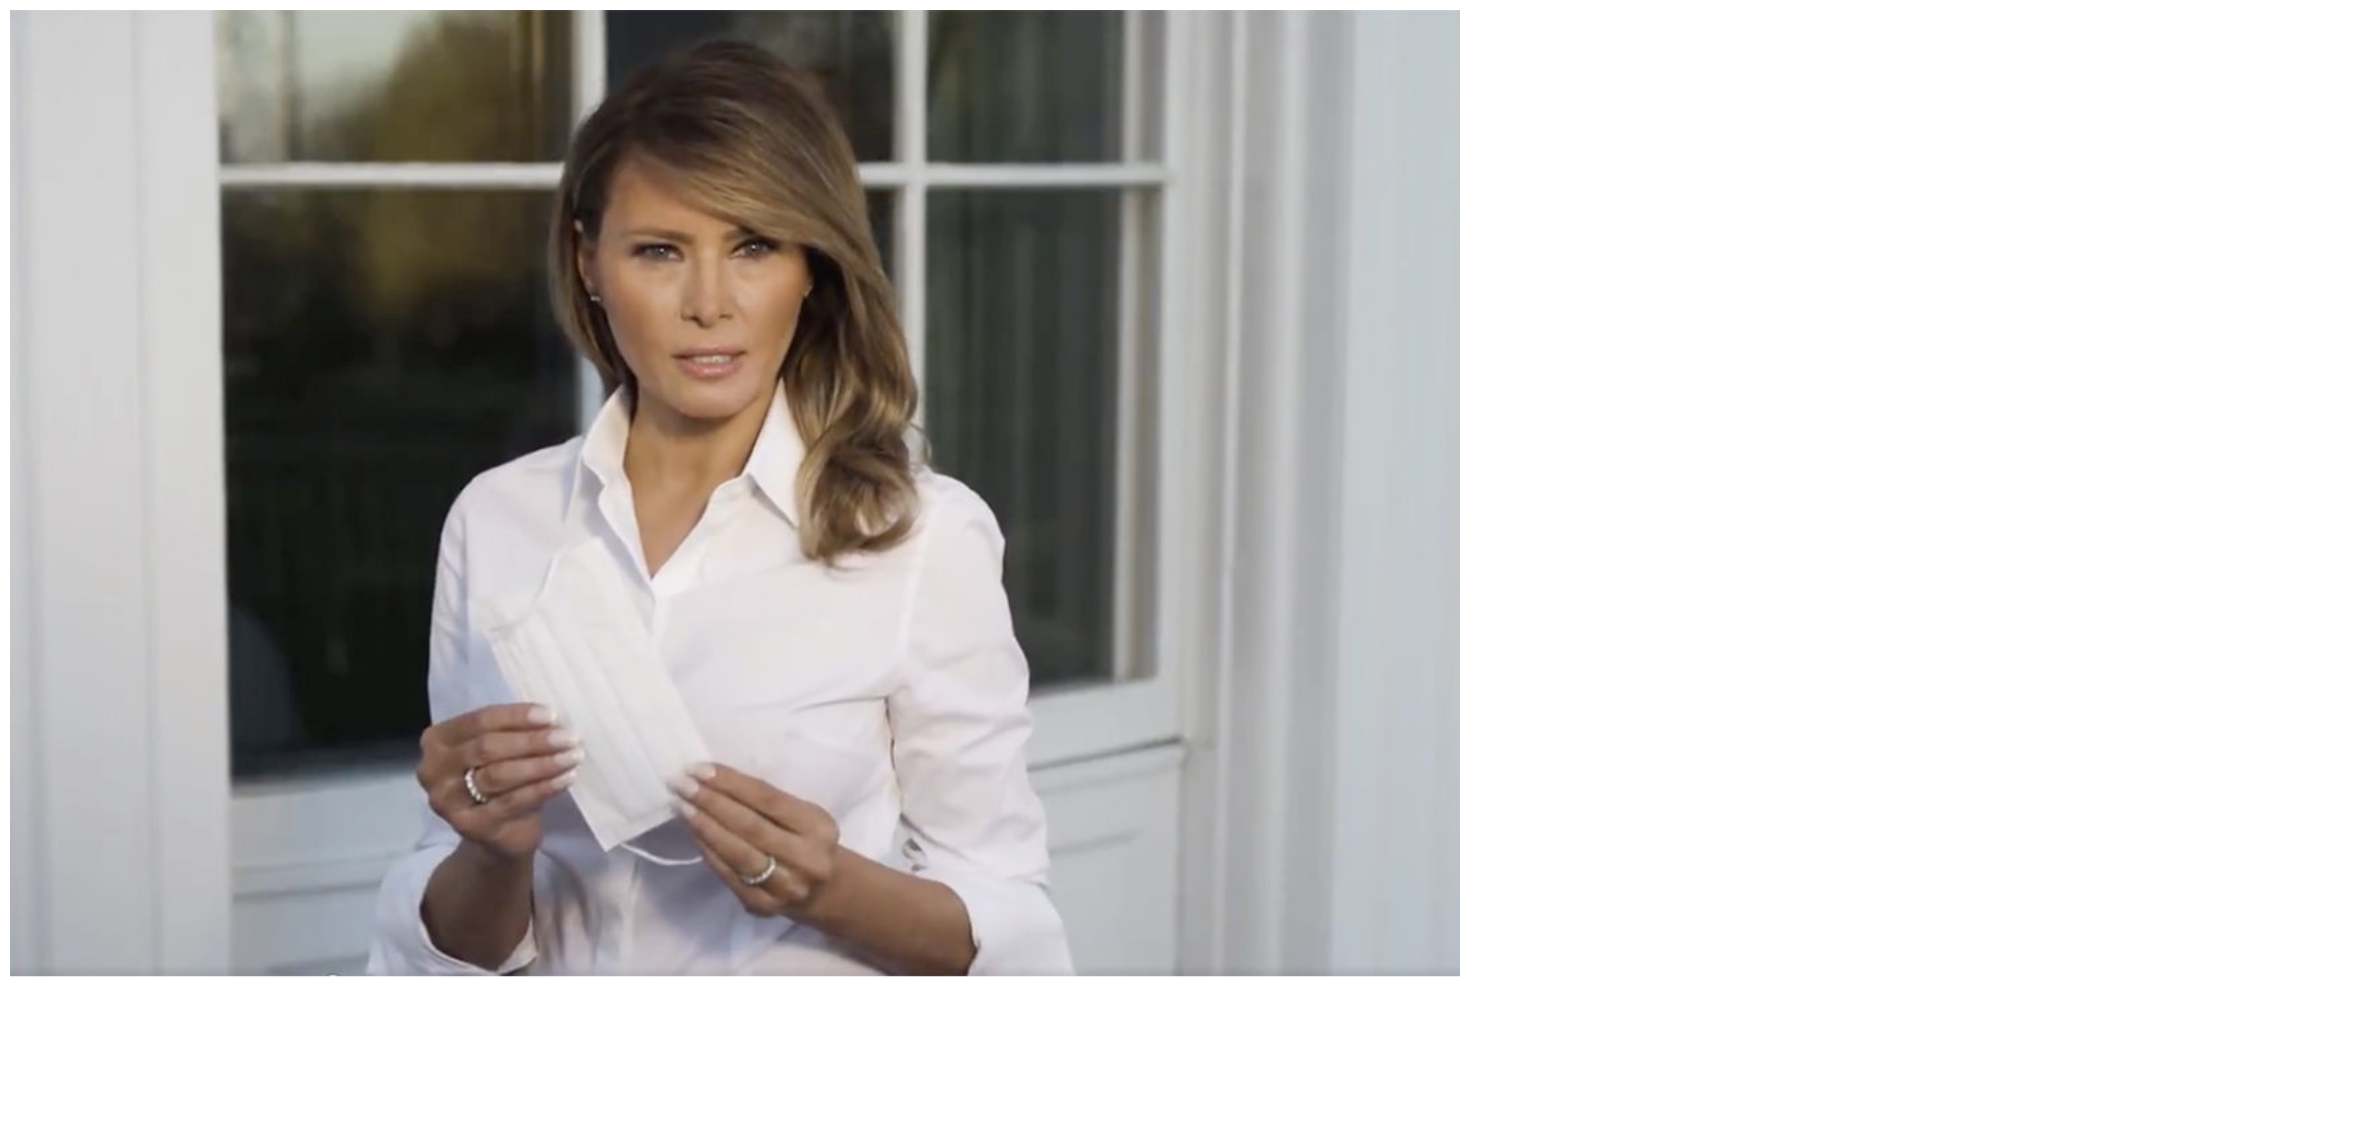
#include <cairo/cairo.h>
#include <math.h>
#include <stddef.h>

static cairo_t *cr;

static void rgb(unsigned color)
{
	cairo_set_source_rgb(cr, (color >> 16) / 255.0, (color >> 8 & 255) / 255.0, (color & 255) / 255.0);
}

static void image(const char *path, double x, double y, double w, double h)
{
	cairo_surface_t *image = cairo_image_surface_create_from_png(path);
	cairo_save(cr);
	cairo_set_source_surface(cr, image, x, y);
	cairo_rectangle(cr, x, y, w, h);
	cairo_fill(cr);
	cairo_restore(cr);
	cairo_surface_destroy(image);
}

int main(void) {
	cairo_surface_t *surface = cairo_image_surface_create(CAIRO_FORMAT_RGB24, 2369, 1134);
	cr = cairo_create(surface);
	cairo_font_options_t *options = cairo_font_options_create();
	cairo_font_options_set_hint_metrics(options, CAIRO_HINT_METRICS_OFF);
	cairo_font_options_set_hint_style(options, CAIRO_HINT_STYLE_NONE);
	cairo_set_font_options(cr, options);
	cairo_set_miter_limit(cr, 4);
	rgb(0xffffff);
	cairo_paint(cr);
	image("img/1.png", 10, 10, 1450, 967);
	cairo_surface_write_to_png(surface, "page.png");
	cairo_font_options_destroy(options);
	cairo_destroy(cr);
	cairo_surface_destroy(surface);
	return 0;
}
